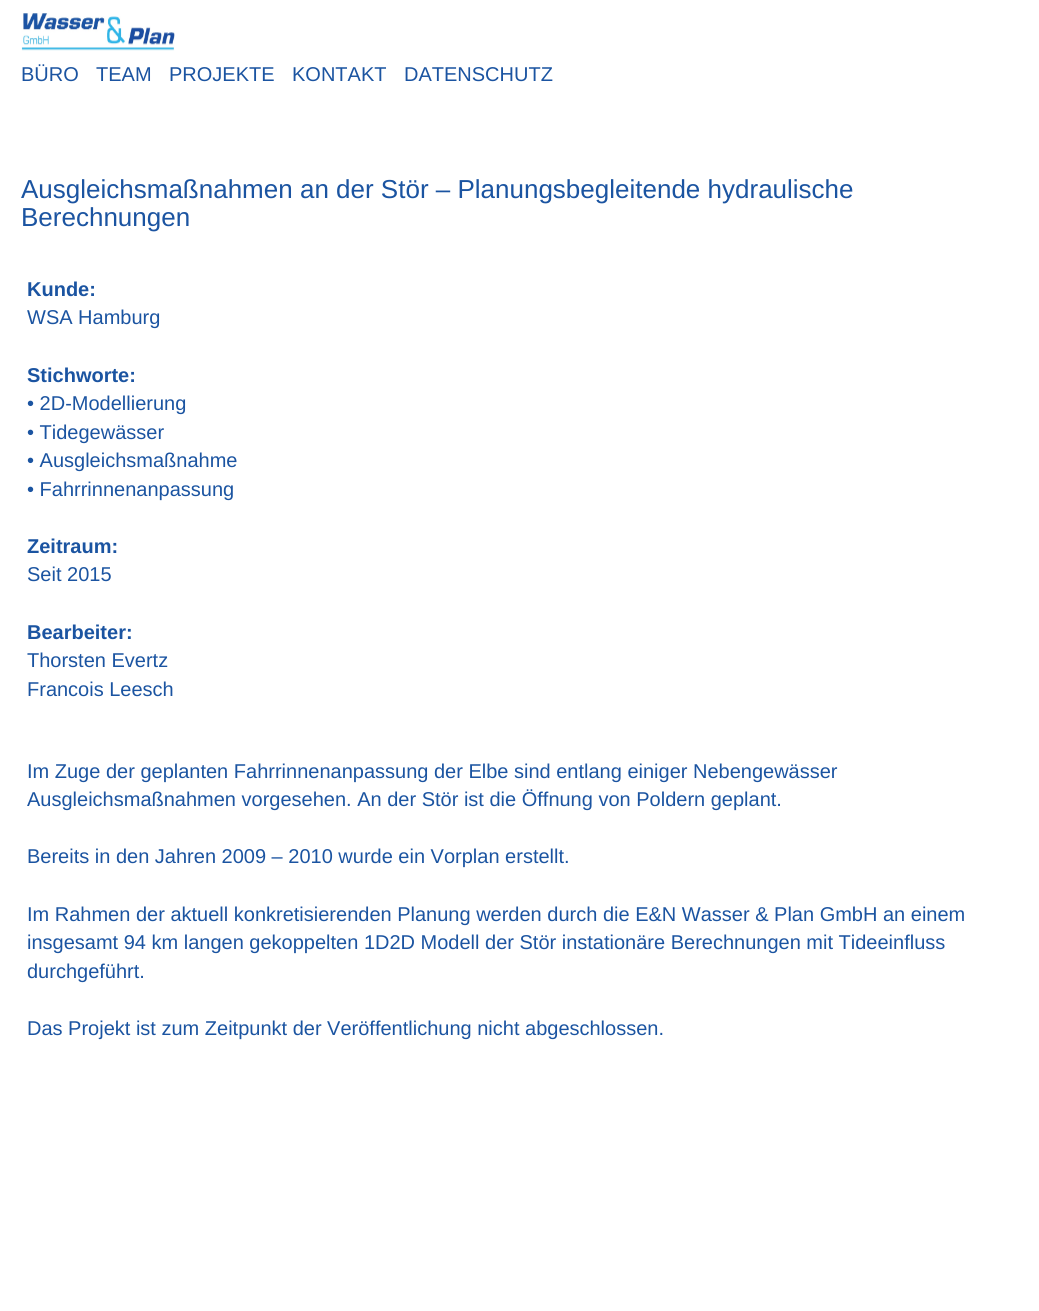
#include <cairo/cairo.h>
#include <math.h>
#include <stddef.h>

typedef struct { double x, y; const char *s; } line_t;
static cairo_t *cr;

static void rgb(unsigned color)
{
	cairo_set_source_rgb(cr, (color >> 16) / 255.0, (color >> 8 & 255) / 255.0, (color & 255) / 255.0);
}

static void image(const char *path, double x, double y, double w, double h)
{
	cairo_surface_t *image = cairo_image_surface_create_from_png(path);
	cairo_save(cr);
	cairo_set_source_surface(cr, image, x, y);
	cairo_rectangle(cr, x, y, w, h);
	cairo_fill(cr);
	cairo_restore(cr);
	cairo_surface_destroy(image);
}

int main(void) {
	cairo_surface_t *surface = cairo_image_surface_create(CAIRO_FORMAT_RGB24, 1039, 1311);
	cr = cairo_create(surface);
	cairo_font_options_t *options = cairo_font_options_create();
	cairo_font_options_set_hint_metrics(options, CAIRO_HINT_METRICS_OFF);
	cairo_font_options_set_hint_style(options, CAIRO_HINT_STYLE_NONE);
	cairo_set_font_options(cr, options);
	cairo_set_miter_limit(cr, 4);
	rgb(0xffffff);
	cairo_paint(cr);
	image("img/1.png", 21, 13, 154, 38);
	cairo_select_font_face(cr, "Liberation Sans", CAIRO_FONT_SLANT_NORMAL, CAIRO_FONT_WEIGHT_NORMAL);
	cairo_set_font_size(cr, 20);
	rgb(0x1b54a1);
	{
		static const line_t items[] = {
			{21, 81, "BÜRO"},
			{96, 81, "TEAM"},
			{169, 81, "PROJEKTE"},
			{292, 81, "KONTAKT"},
			{404, 81, "DATENSCHUTZ"},
		};
		for (size_t i = 0; i < sizeof items / sizeof *items; i++) {
			cairo_move_to(cr, items[i].x, items[i].y);
			cairo_show_text(cr, items[i].s);
		}
	}
	cairo_set_font_size(cr, 26);
	cairo_move_to(cr, 21, 198);
	cairo_show_text(cr, "Ausgleichsmaßnahmen an der Stör – Planungsbegleitende hydraulische");
	cairo_move_to(cr, 21, 226);
	cairo_show_text(cr, "Berechnungen");
	cairo_select_font_face(cr, "Liberation Sans", CAIRO_FONT_SLANT_NORMAL, CAIRO_FONT_WEIGHT_BOLD);
	cairo_set_font_size(cr, 20);
	cairo_move_to(cr, 27, 296);
	cairo_show_text(cr, "Kunde:");
	cairo_select_font_face(cr, "Liberation Sans", CAIRO_FONT_SLANT_NORMAL, CAIRO_FONT_WEIGHT_NORMAL);
	cairo_move_to(cr, 27, 324);
	cairo_show_text(cr, "WSA Hamburg");
	cairo_select_font_face(cr, "Liberation Sans", CAIRO_FONT_SLANT_NORMAL, CAIRO_FONT_WEIGHT_BOLD);
	cairo_move_to(cr, 27, 382);
	cairo_show_text(cr, "Stichworte:");
	cairo_select_font_face(cr, "Liberation Sans", CAIRO_FONT_SLANT_NORMAL, CAIRO_FONT_WEIGHT_NORMAL);
	{
		static const line_t items[] = {
			{27, 410, "• 2D-Modellierung"},
			{27, 439, "• Tidegewässer"},
			{27, 467, "• Ausgleichsmaßnahme"},
			{27, 496, "• Fahrrinnenanpassung"},
		};
		for (size_t i = 0; i < sizeof items / sizeof *items; i++) {
			cairo_move_to(cr, items[i].x, items[i].y);
			cairo_show_text(cr, items[i].s);
		}
	}
	cairo_select_font_face(cr, "Liberation Sans", CAIRO_FONT_SLANT_NORMAL, CAIRO_FONT_WEIGHT_BOLD);
	cairo_move_to(cr, 27, 553);
	cairo_show_text(cr, "Zeitraum:");
	cairo_select_font_face(cr, "Liberation Sans", CAIRO_FONT_SLANT_NORMAL, CAIRO_FONT_WEIGHT_NORMAL);
	cairo_move_to(cr, 27, 581);
	cairo_show_text(cr, "Seit 2015");
	cairo_select_font_face(cr, "Liberation Sans", CAIRO_FONT_SLANT_NORMAL, CAIRO_FONT_WEIGHT_BOLD);
	cairo_move_to(cr, 27, 639);
	cairo_show_text(cr, "Bearbeiter:");
	cairo_select_font_face(cr, "Liberation Sans", CAIRO_FONT_SLANT_NORMAL, CAIRO_FONT_WEIGHT_NORMAL);
	{
		static const line_t items[] = {
			{27, 667, "Thorsten Evertz"},
			{27, 696, "Francois Leesch"},
			{27, 778, "Im Zuge der geplanten Fahrrinnenanpassung der Elbe sind entlang einiger Nebengewässer"},
			{27, 806, "Ausgleichsmaßnahmen vorgesehen. An der Stör ist die Öffnung von Poldern geplant."},
			{27, 863, "Bereits in den Jahren 2009 – 2010 wurde ein Vorplan erstellt."},
			{27, 921, "Im Rahmen der aktuell konkretisierenden Planung werden durch die E&N Wasser & Plan GmbH an einem"},
			{27, 949, "insgesamt 94 km langen gekoppelten 1D2D Modell der Stör instationäre Berechnungen mit Tideeinfluss"},
			{27, 978, "durchgeführt."},
			{27, 1035, "Das Projekt ist zum Zeitpunkt der Veröffentlichung nicht abgeschlossen."},
		};
		for (size_t i = 0; i < sizeof items / sizeof *items; i++) {
			cairo_move_to(cr, items[i].x, items[i].y);
			cairo_show_text(cr, items[i].s);
		}
	}
	cairo_surface_write_to_png(surface, "page.png");
	cairo_font_options_destroy(options);
	cairo_destroy(cr);
	cairo_surface_destroy(surface);
	return 0;
}
